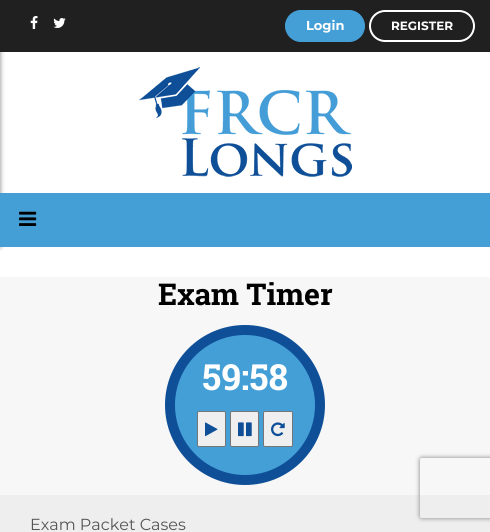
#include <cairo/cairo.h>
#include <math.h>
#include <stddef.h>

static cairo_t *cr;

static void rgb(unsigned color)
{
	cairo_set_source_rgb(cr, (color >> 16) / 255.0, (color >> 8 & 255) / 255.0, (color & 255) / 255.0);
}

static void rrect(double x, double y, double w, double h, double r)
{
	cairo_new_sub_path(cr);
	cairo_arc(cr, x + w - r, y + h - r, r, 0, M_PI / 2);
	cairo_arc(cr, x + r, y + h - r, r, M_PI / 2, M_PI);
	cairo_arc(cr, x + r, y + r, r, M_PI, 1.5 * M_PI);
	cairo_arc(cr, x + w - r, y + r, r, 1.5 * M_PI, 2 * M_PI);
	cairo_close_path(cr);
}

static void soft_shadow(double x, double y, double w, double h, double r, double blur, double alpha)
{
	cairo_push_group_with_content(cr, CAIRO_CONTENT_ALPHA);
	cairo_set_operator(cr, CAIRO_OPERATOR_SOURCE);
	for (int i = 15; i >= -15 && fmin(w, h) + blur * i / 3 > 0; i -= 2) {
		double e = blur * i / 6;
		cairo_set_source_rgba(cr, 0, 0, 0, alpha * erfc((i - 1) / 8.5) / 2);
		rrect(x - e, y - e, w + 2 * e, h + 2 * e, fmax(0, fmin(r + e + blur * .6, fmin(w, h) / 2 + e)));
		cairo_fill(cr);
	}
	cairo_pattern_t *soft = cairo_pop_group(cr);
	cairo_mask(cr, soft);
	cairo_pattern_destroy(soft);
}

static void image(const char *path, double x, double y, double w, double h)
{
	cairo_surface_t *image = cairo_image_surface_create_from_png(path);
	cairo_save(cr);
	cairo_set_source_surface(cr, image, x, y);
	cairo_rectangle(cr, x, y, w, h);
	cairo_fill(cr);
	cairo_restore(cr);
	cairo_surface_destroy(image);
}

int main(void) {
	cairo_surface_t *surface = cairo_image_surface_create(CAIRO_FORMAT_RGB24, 490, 532);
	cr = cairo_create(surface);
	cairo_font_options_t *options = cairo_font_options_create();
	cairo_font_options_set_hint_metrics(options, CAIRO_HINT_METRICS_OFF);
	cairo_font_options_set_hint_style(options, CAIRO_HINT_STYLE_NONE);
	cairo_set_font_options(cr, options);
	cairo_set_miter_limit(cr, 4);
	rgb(0xffffff);
	cairo_paint(cr);
	rgb(0x000000);
	soft_shadow(-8, 0, 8, 247, 0, 2.5, 0.5);
	rgb(0x202020);
	cairo_rectangle(cr, 0, 0, 490, 52);
	cairo_fill(cr);
	image("img/1.png", 30, 16, 8, 13);
	image("img/2.png", 53, 18, 13, 10);
	rgb(0x449fd7);
	rrect(285.5, 10.5, 79, 31, 15.5);
	cairo_fill_preserve(cr);
	cairo_set_line_width(cr, 1);
	cairo_stroke(cr);
	rrect(370, 11, 104, 30, 15);
	rgb(0xffffff);
	cairo_set_line_width(cr, 2);
	cairo_stroke(cr);
	image("img/3.png", 139, 67, 213, 110);
	rgb(0x449fd7);
	cairo_rectangle(cr, 0, 193, 490, 54);
	cairo_fill(cr);
	image("img/4.png", 19, 211, 18, 15);
	rgb(0xf7f7f7);
	cairo_rectangle(cr, 0, 277, 490, 218);
	cairo_fill(cr);
	rgb(0x449fd7);
	cairo_arc(cr, 245, 405, 75, 0, 2 * M_PI);
	cairo_fill_preserve(cr);
	rgb(0x0e4f97);
	cairo_set_line_width(cr, 10);
	cairo_stroke(cr);
	rgb(0xefefef);
	rrect(197.5, 411.5, 28, 35, 1.5);
	cairo_fill_preserve(cr);
	rgb(0x767676);
	cairo_set_line_width(cr, 1);
	cairo_stroke(cr);
	image("img/5.png", 205, 422, 13, 15);
	rgb(0xefefef);
	rrect(230.5, 411.5, 28, 35, 1.5);
	cairo_fill_preserve(cr);
	rgb(0x767676);
	cairo_stroke(cr);
	image("img/6.png", 238, 422, 14, 15);
	rgb(0xefefef);
	rrect(263.5, 411.5, 29, 35, 1.5);
	cairo_fill_preserve(cr);
	rgb(0x767676);
	cairo_stroke(cr);
	image("img/7.png", 271, 422, 14, 15);
	rgb(0xeeeeee);
	cairo_rectangle(cr, 0, 495, 490, 37);
	cairo_fill(cr);
	cairo_save(cr);
	cairo_set_fill_rule(cr, CAIRO_FILL_RULE_EVEN_ODD);
	cairo_new_path(cr);
	cairo_move_to(cr, 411, 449);
	cairo_line_to(cr, 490, 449);
	cairo_line_to(cr, 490, 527);
	cairo_line_to(cr, 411, 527);
	cairo_close_path(cr);
	cairo_move_to(cr, 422, 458);
	cairo_line_to(cr, 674, 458);
	cairo_curve_to(cr, 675, 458, 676, 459, 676, 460);
	cairo_line_to(cr, 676, 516);
	cairo_curve_to(cr, 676, 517, 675, 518, 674, 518);
	cairo_line_to(cr, 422, 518);
	cairo_curve_to(cr, 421, 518, 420, 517, 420, 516);
	cairo_line_to(cr, 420, 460);
	cairo_curve_to(cr, 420, 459, 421, 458, 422, 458);
	cairo_close_path(cr);
	cairo_clip(cr);
	rgb(0x808080);
	soft_shadow(420, 458, 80, 60, 2, 2.5, 1);
	cairo_restore(cr);
	cairo_select_font_face(cr, "Montserrat", CAIRO_FONT_SLANT_NORMAL, CAIRO_FONT_WEIGHT_BOLD);
	cairo_set_font_size(cr, 13);
	rgb(0xffffff);
	cairo_move_to(cr, 306, 30);
	cairo_show_text(cr, "Login");
	cairo_set_font_size(cr, 12);
	cairo_move_to(cr, 391, 30);
	cairo_show_text(cr, "REGISTER");
	cairo_select_font_face(cr, "Roboto Slab", CAIRO_FONT_SLANT_NORMAL, CAIRO_FONT_WEIGHT_BOLD);
	cairo_set_font_size(cr, 30);
	rgb(0x000000);
	cairo_move_to(cr, 158, 305);
	cairo_show_text(cr, "Exam Timer");
	cairo_set_font_size(cr, 36);
	rgb(0xffffff);
	cairo_move_to(cr, 202, 390);
	cairo_show_text(cr, "59:58");
	cairo_select_font_face(cr, "Montserrat", CAIRO_FONT_SLANT_NORMAL, CAIRO_FONT_WEIGHT_NORMAL);
	cairo_set_font_size(cr, 16);
	rgb(0x555555);
	cairo_move_to(cr, 30, 530);
	cairo_show_text(cr, "Exam Packet Cases");
	cairo_surface_write_to_png(surface, "page.png");
	cairo_font_options_destroy(options);
	cairo_destroy(cr);
	cairo_surface_destroy(surface);
	return 0;
}
